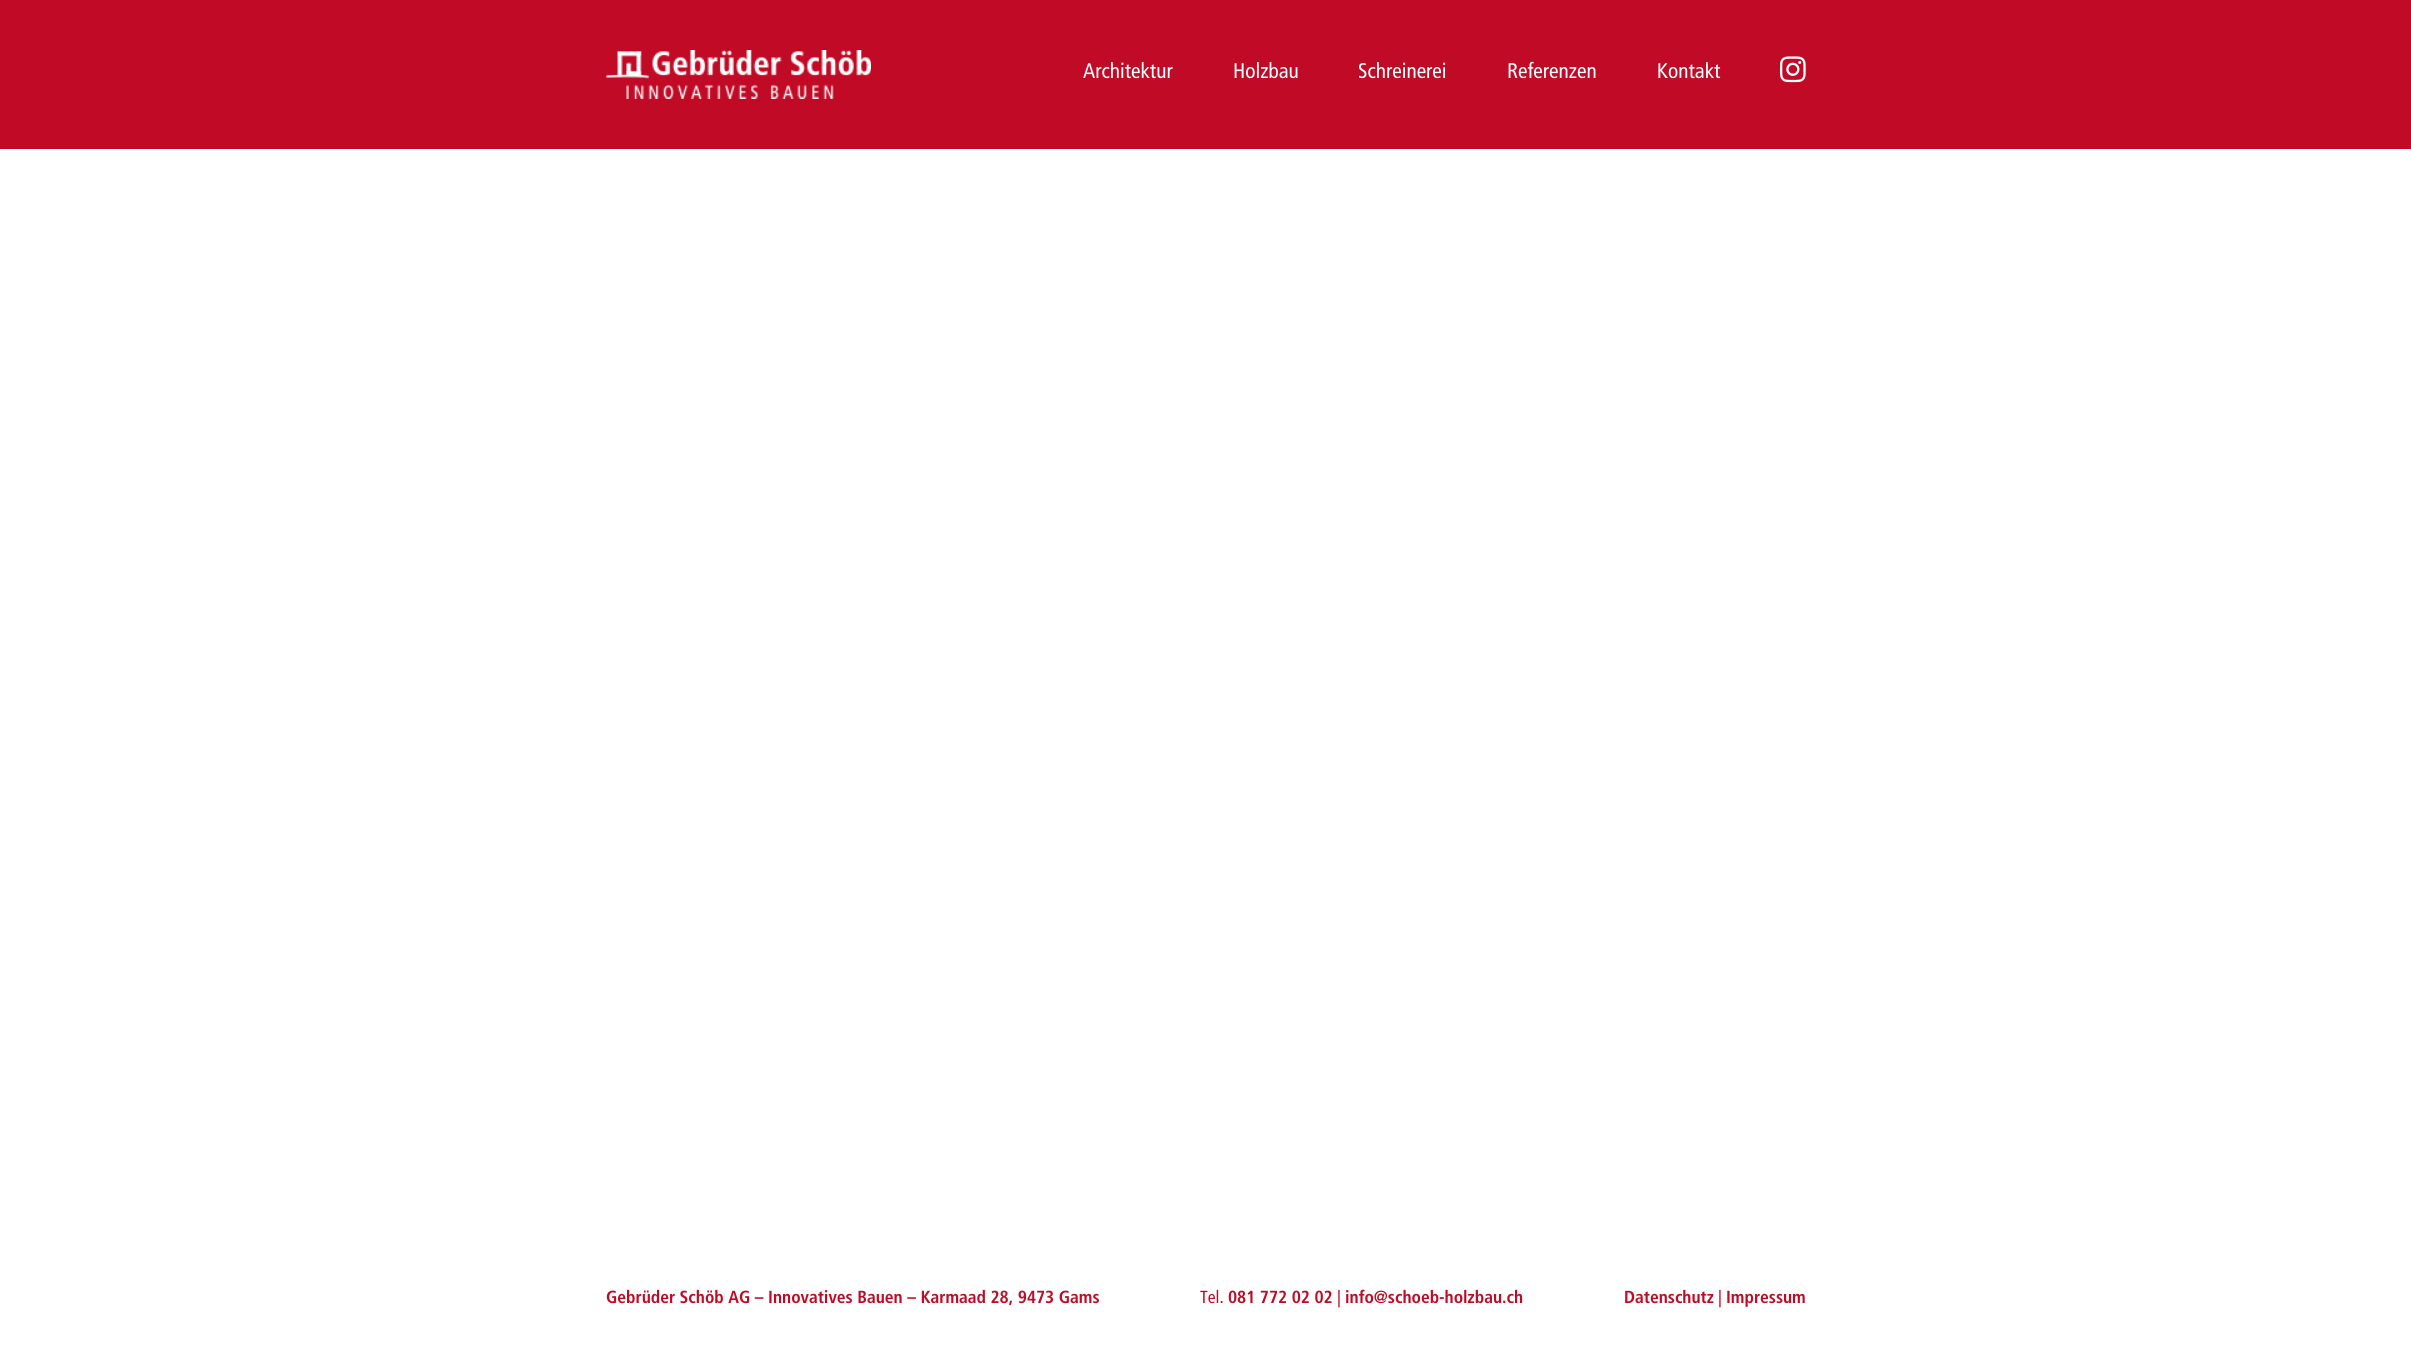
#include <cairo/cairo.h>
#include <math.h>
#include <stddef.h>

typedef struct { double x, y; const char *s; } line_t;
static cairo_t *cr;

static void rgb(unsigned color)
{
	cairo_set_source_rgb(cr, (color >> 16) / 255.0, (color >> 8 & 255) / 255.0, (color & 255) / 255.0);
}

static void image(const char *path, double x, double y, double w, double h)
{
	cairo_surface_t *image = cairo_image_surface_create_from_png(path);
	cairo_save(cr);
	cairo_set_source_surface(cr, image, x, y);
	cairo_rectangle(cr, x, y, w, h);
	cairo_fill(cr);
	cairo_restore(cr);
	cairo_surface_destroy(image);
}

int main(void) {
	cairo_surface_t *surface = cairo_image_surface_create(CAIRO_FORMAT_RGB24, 2411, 1345);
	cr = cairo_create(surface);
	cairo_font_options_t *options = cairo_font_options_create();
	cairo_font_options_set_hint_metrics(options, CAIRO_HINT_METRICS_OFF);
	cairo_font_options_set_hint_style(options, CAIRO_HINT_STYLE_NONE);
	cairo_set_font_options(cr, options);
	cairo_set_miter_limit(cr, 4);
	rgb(0xffffff);
	cairo_paint(cr);
	rgb(0xc10a25);
	cairo_rectangle(cr, 0, 0, 2411, 149);
	cairo_fill(cr);
	image("img/1.png", 606, 50, 265, 49);
	image("img/2.png", 1780, 56, 26, 27);
	cairo_select_font_face(cr, "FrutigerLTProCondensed", CAIRO_FONT_SLANT_NORMAL, CAIRO_FONT_WEIGHT_NORMAL);
	cairo_set_font_size(cr, 21.25);
	rgb(0xffffff);
	{
		static const line_t items[] = {
			{1083, 78, "Architektur"},
			{1233, 78, "Holzbau"},
			{1358, 78, "Schreinerei"},
			{1507, 78, "Referenzen"},
			{1657, 78, "Kontakt"},
		};
		for (size_t i = 0; i < sizeof items / sizeof *items; i++) {
			cairo_move_to(cr, items[i].x, items[i].y);
			cairo_show_text(cr, items[i].s);
		}
	}
	cairo_select_font_face(cr, "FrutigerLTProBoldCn", CAIRO_FONT_SLANT_NORMAL, CAIRO_FONT_WEIGHT_BOLD);
	cairo_set_font_size(cr, 17.5);
	rgb(0xc10a25);
	cairo_move_to(cr, 606, 1303);
	cairo_show_text(cr, "Gebrüder Schöb AG – Innovatives Bauen – Karmaad 28, 9473 Gams");
	cairo_select_font_face(cr, "FrutigerLTProCondensed", CAIRO_FONT_SLANT_NORMAL, CAIRO_FONT_WEIGHT_NORMAL);
	cairo_move_to(cr, 1200, 1303);
	cairo_show_text(cr, "Tel.");
	cairo_select_font_face(cr, "FrutigerLTProBoldCn", CAIRO_FONT_SLANT_NORMAL, CAIRO_FONT_WEIGHT_BOLD);
	cairo_move_to(cr, 1228, 1303);
	cairo_show_text(cr, "081 772 02 02");
	cairo_select_font_face(cr, "FrutigerLTProCondensed", CAIRO_FONT_SLANT_NORMAL, CAIRO_FONT_WEIGHT_NORMAL);
	cairo_move_to(cr, 1337, 1303);
	cairo_show_text(cr, "|");
	cairo_select_font_face(cr, "FrutigerLTProBoldCn", CAIRO_FONT_SLANT_NORMAL, CAIRO_FONT_WEIGHT_BOLD);
	cairo_move_to(cr, 1345, 1303);
	cairo_show_text(cr, "info@schoeb-holzbau.ch");
	cairo_move_to(cr, 1624, 1303);
	cairo_show_text(cr, "Datenschutz");
	cairo_select_font_face(cr, "FrutigerLTProCondensed", CAIRO_FONT_SLANT_NORMAL, CAIRO_FONT_WEIGHT_NORMAL);
	cairo_move_to(cr, 1718, 1303);
	cairo_show_text(cr, "|");
	cairo_select_font_face(cr, "FrutigerLTProBoldCn", CAIRO_FONT_SLANT_NORMAL, CAIRO_FONT_WEIGHT_BOLD);
	cairo_move_to(cr, 1726, 1303);
	cairo_show_text(cr, "Impressum");
	cairo_surface_write_to_png(surface, "page.png");
	cairo_font_options_destroy(options);
	cairo_destroy(cr);
	cairo_surface_destroy(surface);
	return 0;
}
